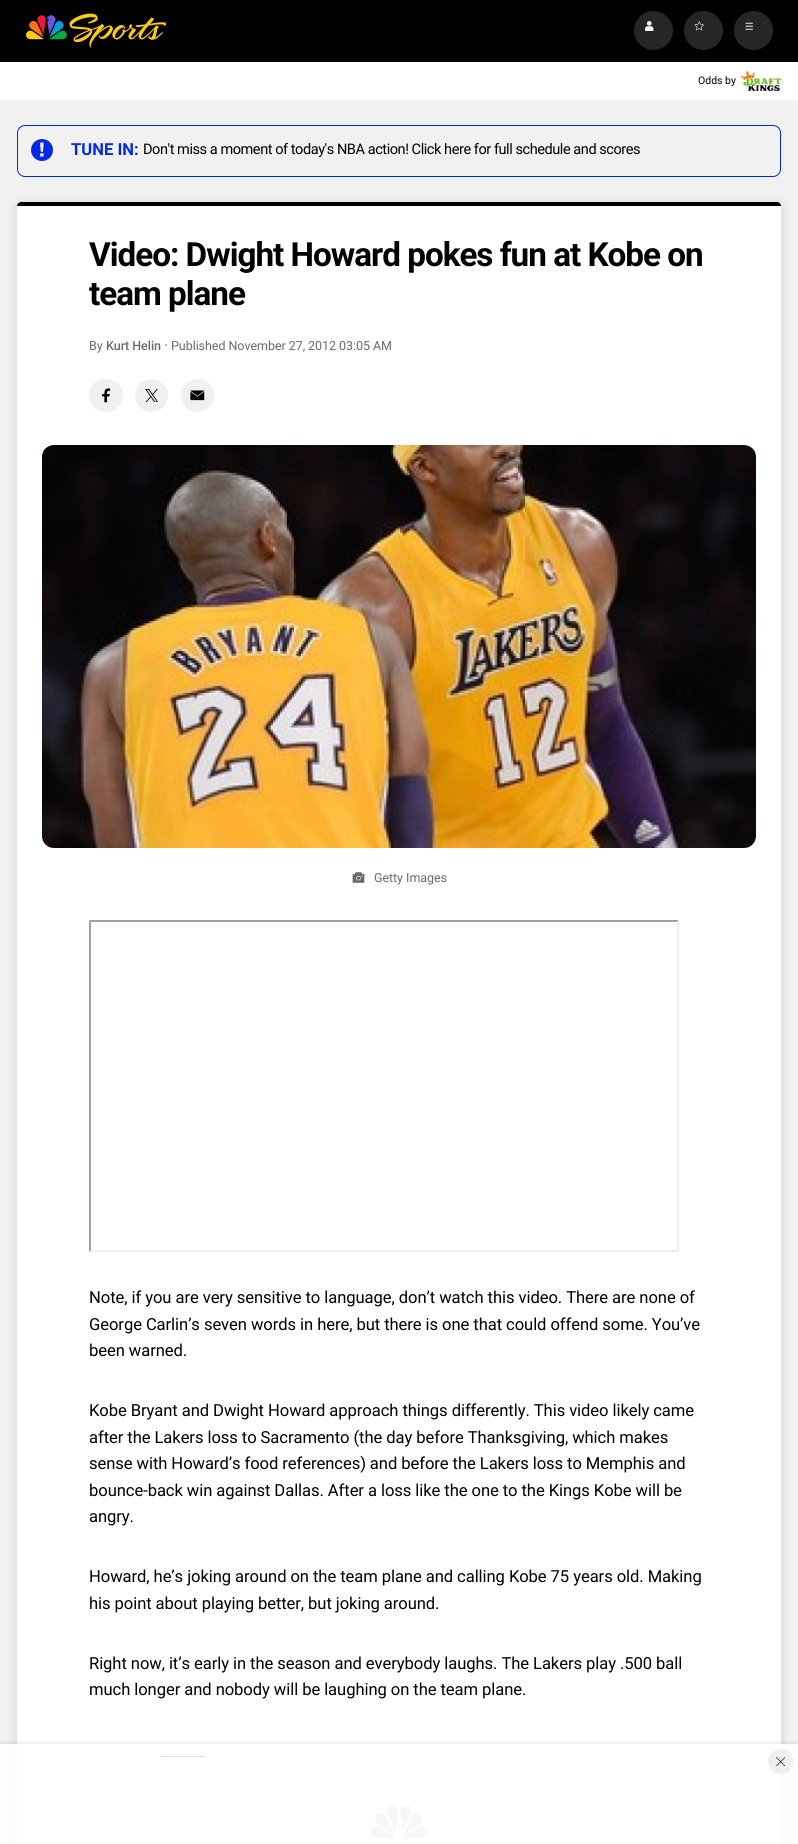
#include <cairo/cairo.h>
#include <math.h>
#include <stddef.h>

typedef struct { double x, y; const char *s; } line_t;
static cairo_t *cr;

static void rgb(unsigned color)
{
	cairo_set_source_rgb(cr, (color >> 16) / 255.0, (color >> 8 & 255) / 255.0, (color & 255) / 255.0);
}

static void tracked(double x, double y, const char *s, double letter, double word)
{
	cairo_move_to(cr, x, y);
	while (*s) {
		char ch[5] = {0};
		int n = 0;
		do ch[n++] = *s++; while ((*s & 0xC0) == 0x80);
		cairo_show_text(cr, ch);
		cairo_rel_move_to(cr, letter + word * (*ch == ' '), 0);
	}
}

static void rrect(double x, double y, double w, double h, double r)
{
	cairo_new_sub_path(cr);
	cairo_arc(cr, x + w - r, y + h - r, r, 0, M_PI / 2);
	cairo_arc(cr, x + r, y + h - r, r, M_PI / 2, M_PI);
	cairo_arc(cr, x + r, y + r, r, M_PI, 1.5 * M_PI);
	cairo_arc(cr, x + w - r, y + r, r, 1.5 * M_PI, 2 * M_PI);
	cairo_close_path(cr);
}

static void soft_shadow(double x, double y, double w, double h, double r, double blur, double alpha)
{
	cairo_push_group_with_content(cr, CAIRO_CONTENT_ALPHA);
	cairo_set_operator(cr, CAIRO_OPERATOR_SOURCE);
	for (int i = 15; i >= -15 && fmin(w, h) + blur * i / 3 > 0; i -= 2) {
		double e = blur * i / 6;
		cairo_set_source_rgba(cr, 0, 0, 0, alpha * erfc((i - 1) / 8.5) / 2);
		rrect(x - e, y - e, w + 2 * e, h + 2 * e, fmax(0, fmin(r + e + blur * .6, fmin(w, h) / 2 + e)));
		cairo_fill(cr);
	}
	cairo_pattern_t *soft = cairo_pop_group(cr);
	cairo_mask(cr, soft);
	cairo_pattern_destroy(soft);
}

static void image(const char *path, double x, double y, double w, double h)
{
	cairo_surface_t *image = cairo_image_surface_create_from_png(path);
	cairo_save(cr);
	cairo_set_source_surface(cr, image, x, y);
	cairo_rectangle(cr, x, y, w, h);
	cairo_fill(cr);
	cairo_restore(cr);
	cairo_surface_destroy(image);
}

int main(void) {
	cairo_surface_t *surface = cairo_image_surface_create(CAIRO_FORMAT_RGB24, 798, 1844);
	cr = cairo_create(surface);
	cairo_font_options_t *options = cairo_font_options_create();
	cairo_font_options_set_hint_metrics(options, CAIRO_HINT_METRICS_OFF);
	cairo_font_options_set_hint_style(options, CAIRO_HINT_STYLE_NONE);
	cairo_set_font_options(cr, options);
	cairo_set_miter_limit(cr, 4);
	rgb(0xf1f1f1);
	cairo_paint(cr);
	rgb(0x000000);
	cairo_rectangle(cr, 0, 0, 798, 62);
	cairo_fill(cr);
	image("img/1.png", 26, 13, 140, 35);
	rgb(0x262626);
	cairo_arc(cr, 653.5, 30.5, 19.5, 0, 2 * M_PI);
	cairo_fill(cr);
	image("img/2.png", 645, 21, 9, 10);
	cairo_arc(cr, 703.5, 30.5, 19.5, 0, 2 * M_PI);
	cairo_fill(cr);
	image("img/3.png", 694, 21, 10, 10);
	cairo_arc(cr, 753.5, 30.5, 19.5, 0, 2 * M_PI);
	cairo_fill(cr);
	image("img/4.png", 745, 22, 8, 8);
	rgb(0xffffff);
	cairo_rectangle(cr, 0, 62, 798, 38);
	cairo_fill(cr);
	image("img/5.png", 740, 71, 41, 20);
	rrect(17.5, 125.5, 763, 51, 7.5);
	rgb(0x0329e7);
	cairo_set_line_width(cr, 1);
	cairo_stroke(cr);
	image("img/6.png", 31, 139, 22, 22);
	rgb(0x000000);
	soft_shadow(17, 204, 764, 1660, 5, 5, 0.15);
	rgb(0xffffff);
	rrect(17, 202, 764, 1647, 5);
	cairo_fill(cr);
	rgb(0x000000);
	cairo_new_path(cr);
	cairo_move_to(cr, 21, 202);
	cairo_line_to(cr, 777, 202);
	cairo_curve_to(cr, 779, 202, 781, 204, 781, 206);
	cairo_line_to(cr, 17, 206);
	cairo_curve_to(cr, 17, 204, 19, 202, 21, 202);
	cairo_close_path(cr);
	cairo_fill(cr);
	rgb(0x6a6a6a);
	cairo_arc(cr, 166.1, 345, 0.8, 0, 2 * M_PI);
	cairo_fill(cr);
	rgb(0xf0f0f0);
	rrect(89, 379, 34, 33, 16.5);
	cairo_fill(cr);
	image("img/7.png", 102, 388, 9, 15);
	cairo_arc(cr, 151.5, 395.5, 16.5, 0, 2 * M_PI);
	cairo_fill(cr);
	image("img/8.png", 145, 389, 13, 13);
	cairo_arc(cr, 197.5, 395.5, 16.5, 0, 2 * M_PI);
	cairo_fill(cr);
	image("img/9.png", 190, 390, 15, 11);
	image("img/10.png", 42, 445, 714, 403);
	image("img/11.png", 352, 872, 13, 11);
	rgb(0x9f9f9f);
	cairo_new_path(cr);
	cairo_move_to(cr, 89, 920);
	cairo_line_to(cr, 679, 920);
	cairo_line_to(cr, 677, 922);
	cairo_line_to(cr, 91, 922);
	cairo_close_path(cr);
	cairo_fill(cr);
	rgb(0xeeeeee);
	cairo_new_path(cr);
	cairo_move_to(cr, 679, 920);
	cairo_line_to(cr, 679, 1252);
	cairo_line_to(cr, 677, 1250);
	cairo_line_to(cr, 677, 922);
	cairo_close_path(cr);
	cairo_fill(cr);
	cairo_new_path(cr);
	cairo_move_to(cr, 679, 1252);
	cairo_line_to(cr, 89, 1252);
	cairo_line_to(cr, 91, 1250);
	cairo_line_to(cr, 677, 1250);
	cairo_close_path(cr);
	cairo_fill(cr);
	rgb(0x9f9f9f);
	cairo_new_path(cr);
	cairo_move_to(cr, 89, 1252);
	cairo_line_to(cr, 89, 920);
	cairo_line_to(cr, 91, 922);
	cairo_line_to(cr, 91, 1250);
	cairo_close_path(cr);
	cairo_fill(cr);
	rgb(0x0329e7);
	cairo_rectangle(cr, 161, 1756, 44, 1);
	cairo_fill(cr);
	image("img/12.png", 371, 1805, 56, 33);
	cairo_save(cr);
	cairo_rectangle(cr, 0, 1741, 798, 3);
	cairo_clip(cr);
	rgb(0x000000);
	soft_shadow(0, 1742, 798, 100, 0, 2, 0.08);
	cairo_restore(cr);
	cairo_set_source_rgba(cr, 1, 1, 1, 0.85);
	cairo_rectangle(cr, 0, 1744, 798, 100);
	cairo_fill(cr);
	rgb(0xefefef);
	cairo_arc(cr, 780.5, 1761.5, 12.5, 0, 2 * M_PI);
	cairo_fill(cr);
	image("img/13.png", 776, 1757, 9, 9);
	cairo_select_font_face(cr, "Roboto", CAIRO_FONT_SLANT_NORMAL, CAIRO_FONT_WEIGHT_NORMAL);
	cairo_set_font_size(cr, 10.5);
	rgb(0x000000);
	cairo_move_to(cr, 698, 84);
	cairo_show_text(cr, "Odds by");
	cairo_select_font_face(cr, "Roboto", CAIRO_FONT_SLANT_NORMAL, CAIRO_FONT_WEIGHT_BOLD);
	cairo_set_font_size(cr, 16.6);
	rgb(0x0329e7);
	cairo_move_to(cr, 71, 155);
	cairo_show_text(cr, "TUNE IN:");
	cairo_select_font_face(cr, "Roboto", CAIRO_FONT_SLANT_NORMAL, CAIRO_FONT_WEIGHT_NORMAL);
	cairo_set_font_size(cr, 14.55);
	rgb(0x000000);
	tracked(143, 154, "Don't miss a moment of today's NBA action! Click here for full schedule and scores", -0.45, 0);
	cairo_select_font_face(cr, "Roboto", CAIRO_FONT_SLANT_NORMAL, CAIRO_FONT_WEIGHT_BOLD);
	cairo_set_font_size(cr, 33.25);
	tracked(89, 266, "Video: Dwight Howard pokes fun at Kobe on", -1, 0);
	tracked(89, 305, "team plane", -1, 0);
	cairo_select_font_face(cr, "Roboto", CAIRO_FONT_SLANT_NORMAL, CAIRO_FONT_WEIGHT_NORMAL);
	cairo_set_font_size(cr, 12.5);
	rgb(0x6a6a6a);
	tracked(89, 350, "By", -0.05, 0);
	cairo_select_font_face(cr, "Roboto Medium", CAIRO_FONT_SLANT_NORMAL, CAIRO_FONT_WEIGHT_NORMAL);
	tracked(106, 350, "Kurt Helin", -0.05, 0);
	cairo_select_font_face(cr, "Roboto", CAIRO_FONT_SLANT_NORMAL, CAIRO_FONT_WEIGHT_NORMAL);
	tracked(171, 350, "Published November 27, 2012 03:05 AM", -0.05, 0);
	tracked(374, 882, "Getty Images", -0.05, 0);
	cairo_set_font_size(cr, 16.6);
	rgb(0x000000);
	{
		static const line_t items[] = {
			{89, 1303, "Note, if you are very sensitive to language, don’t watch this video. There are none of"},
			{89, 1330, "George Carlin’s seven words in here, but there is one that could offend some. You’ve"},
			{89, 1356, "been warned."},
			{89, 1416, "Kobe Bryant and Dwight Howard approach things differently. This video likely came"},
			{89, 1443, "after the Lakers loss to Sacramento (the day before Thanksgiving, which makes"},
			{89, 1469, "sense with Howard’s food references) and before the Lakers loss to Memphis and"},
			{89, 1496, "bounce-back win against Dallas. After a loss like the one to the Kings Kobe will be"},
			{89, 1522, "angry."},
			{89, 1582, "Howard, he’s joking around on the team plane and calling Kobe 75 years old. Making"},
			{89, 1609, "his point about playing better, but joking around."},
			{89, 1669, "Right now, it’s early in the season and everybody laughs. The Lakers play .500 ball"},
			{89, 1695, "much longer and nobody will be laughing on the team plane."},
		};
		for (size_t i = 0; i < sizeof items / sizeof *items; i++) {
			tracked(items[i].x, items[i].y, items[i].s, -0.08, 0);
		}
	}
	cairo_surface_write_to_png(surface, "page.png");
	cairo_font_options_destroy(options);
	cairo_destroy(cr);
	cairo_surface_destroy(surface);
	return 0;
}
